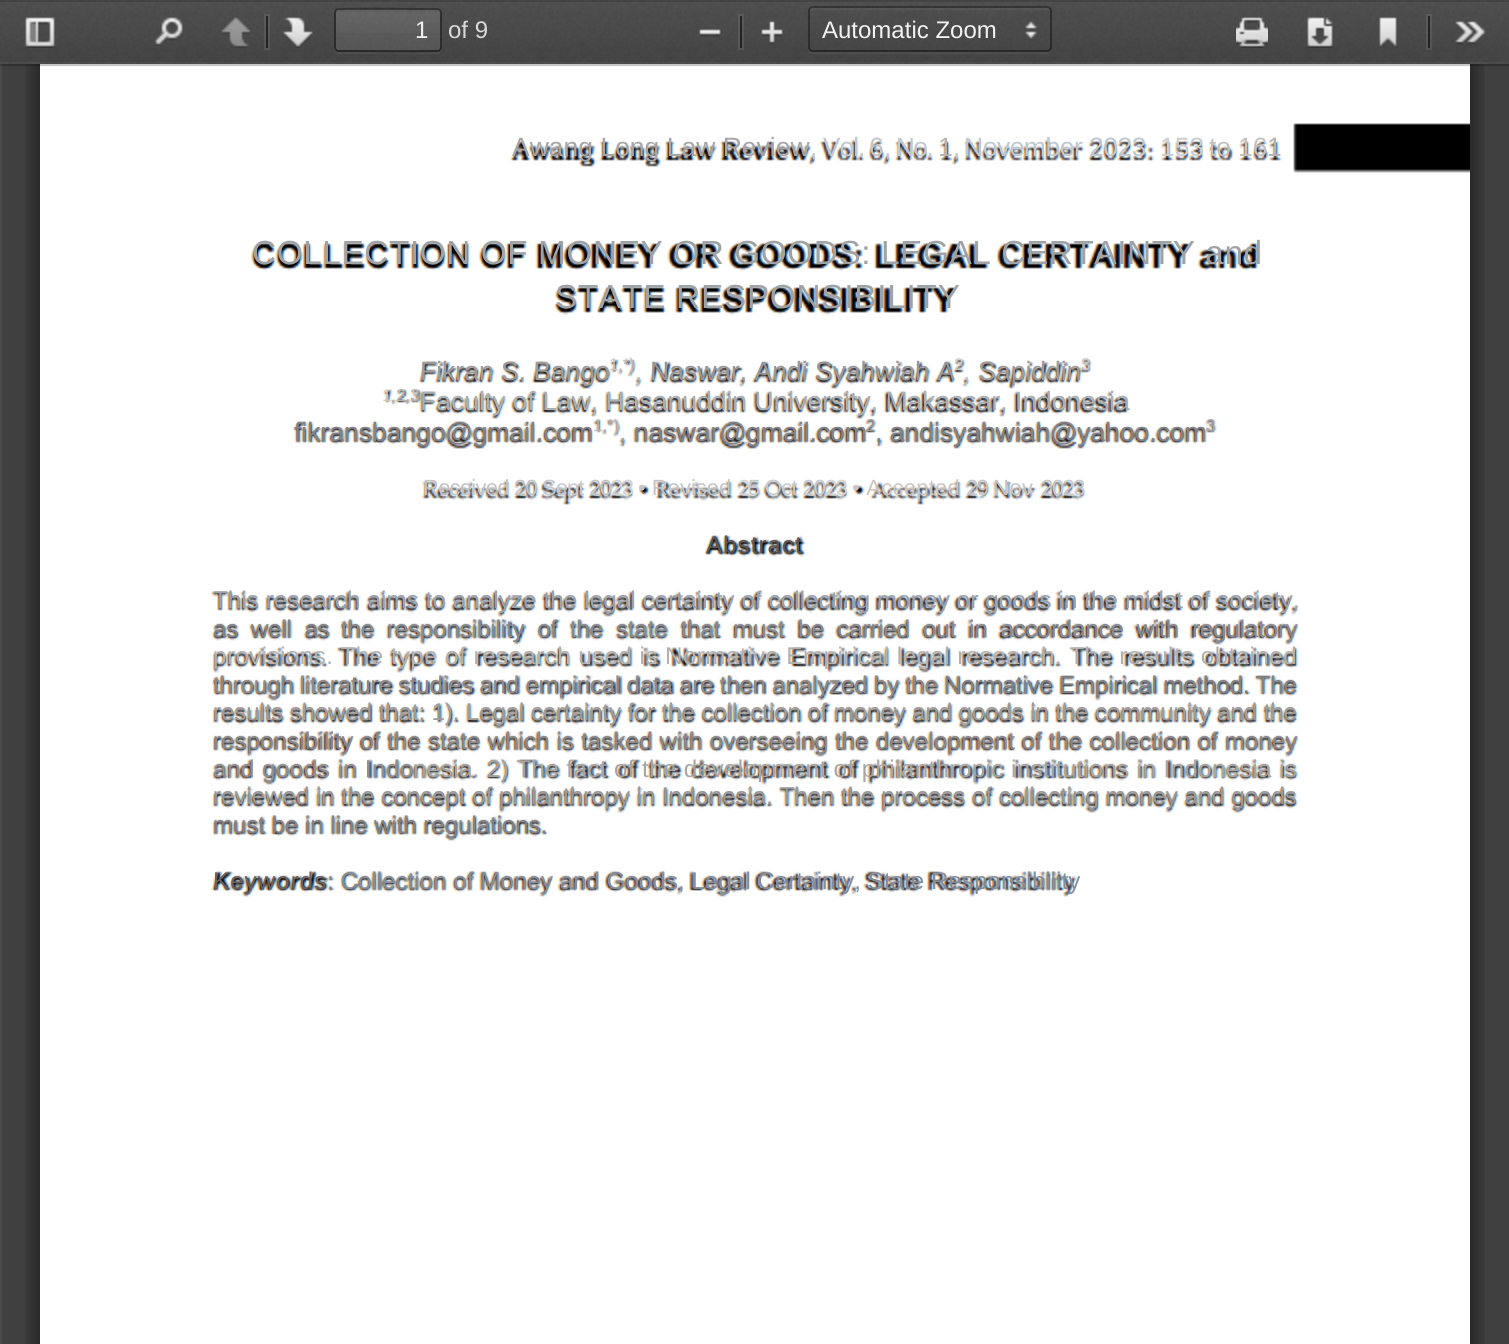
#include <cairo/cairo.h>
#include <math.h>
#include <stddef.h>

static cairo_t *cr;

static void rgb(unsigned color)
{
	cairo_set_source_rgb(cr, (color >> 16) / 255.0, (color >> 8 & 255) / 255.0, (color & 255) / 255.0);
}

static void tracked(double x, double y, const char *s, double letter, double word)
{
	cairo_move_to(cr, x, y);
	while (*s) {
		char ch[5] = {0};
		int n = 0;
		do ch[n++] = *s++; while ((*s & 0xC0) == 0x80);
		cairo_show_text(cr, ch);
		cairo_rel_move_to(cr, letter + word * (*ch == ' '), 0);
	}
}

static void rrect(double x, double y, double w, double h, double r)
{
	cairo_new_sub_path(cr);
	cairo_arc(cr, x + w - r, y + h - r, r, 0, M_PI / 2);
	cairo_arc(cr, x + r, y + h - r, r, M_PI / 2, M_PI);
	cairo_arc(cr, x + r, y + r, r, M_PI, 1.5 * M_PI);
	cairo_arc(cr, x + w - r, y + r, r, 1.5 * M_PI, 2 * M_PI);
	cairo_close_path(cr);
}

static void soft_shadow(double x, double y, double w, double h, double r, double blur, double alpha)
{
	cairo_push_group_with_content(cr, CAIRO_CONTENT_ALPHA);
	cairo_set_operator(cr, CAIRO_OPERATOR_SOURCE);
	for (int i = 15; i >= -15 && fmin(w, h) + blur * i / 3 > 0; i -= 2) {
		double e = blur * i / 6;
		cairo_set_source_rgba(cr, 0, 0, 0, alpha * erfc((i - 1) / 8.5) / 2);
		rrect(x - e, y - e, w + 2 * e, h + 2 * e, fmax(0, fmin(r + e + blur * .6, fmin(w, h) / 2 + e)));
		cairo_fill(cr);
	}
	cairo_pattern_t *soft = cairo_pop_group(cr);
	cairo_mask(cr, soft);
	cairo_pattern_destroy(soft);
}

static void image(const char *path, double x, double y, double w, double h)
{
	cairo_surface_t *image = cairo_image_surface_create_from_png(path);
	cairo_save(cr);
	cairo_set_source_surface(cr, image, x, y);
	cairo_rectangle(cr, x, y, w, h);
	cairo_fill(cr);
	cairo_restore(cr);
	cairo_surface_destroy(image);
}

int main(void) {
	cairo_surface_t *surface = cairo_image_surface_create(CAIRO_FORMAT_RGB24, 1509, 1344);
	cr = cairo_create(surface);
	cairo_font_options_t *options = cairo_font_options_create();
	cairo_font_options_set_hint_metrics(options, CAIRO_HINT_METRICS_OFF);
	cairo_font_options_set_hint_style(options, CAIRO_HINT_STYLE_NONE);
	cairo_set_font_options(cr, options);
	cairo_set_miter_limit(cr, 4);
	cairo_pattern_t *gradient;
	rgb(0x404040);
	cairo_paint(cr);
	rgb(0x4a4a4a);
	cairo_rectangle(cr, 0, 64, 2, 1280);
	cairo_fill(cr);
	rgb(0xffffff);
	cairo_rectangle(cr, 40, 64, 1430, 1280);
	cairo_fill(cr);
	image("img/13.png", 25, 64, 1460, 1280);
	cairo_save(cr);
	cairo_rectangle(cr, 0, 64, 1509, 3);
	cairo_clip(cr);
	rgb(0x000000);
	soft_shadow(0, 2, 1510, 64, 0, 1, 0.1);
	cairo_restore(cr);
	cairo_set_source_rgba(cr, 0, 0, 0, 0.15);
	cairo_rectangle(cr, 0, 64, 1509, 2);
	cairo_fill(cr);
	image("img/1.png", 0, 0, 1509, 64);
	cairo_set_source_rgba(cr, 1, 1, 1, 0.05);
	cairo_rectangle(cr, 0, 62, 1509, 2);
	cairo_fill(cr);
	cairo_set_source_rgba(cr, 0, 0, 0, 0.15);
	cairo_rectangle(cr, 0, 0, 1509, 2);
	cairo_fill(cr);
	image("img/2.png", 25, 17, 30, 31);
	image("img/3.png", 155, 17, 28, 29);
	image("img/4.png", 221, 17, 30, 31);
	cairo_rectangle(cr, 265, 15, 4, 34);
	cairo_set_source_rgba(cr, 1, 1, 1, 0.08);
	cairo_stroke(cr);
	cairo_set_source_rgba(cr, 0, 0, 0, 0.5);
	cairo_rectangle(cr, 266, 16, 2, 32);
	cairo_fill(cr);
	image("img/5.png", 283, 17, 30, 31);
	cairo_set_source_rgba(cr, 1, 1, 1, 0.05);
	cairo_new_path(cr);
	cairo_move_to(cr, 334, 48);
	cairo_line_to(cr, 334, 50);
	cairo_curve_to(cr, 334, 52, 336, 54, 338, 54);
	cairo_line_to(cr, 438, 54);
	cairo_curve_to(cr, 440, 54, 442, 52, 442, 50);
	cairo_line_to(cr, 442, 48);
	cairo_curve_to(cr, 442, 50, 440, 52, 438, 52);
	cairo_line_to(cr, 338, 52);
	cairo_curve_to(cr, 336, 52, 334, 50, 334, 48);
	cairo_close_path(cr);
	cairo_fill(cr);
	cairo_set_source_rgba(cr, 1, 1, 1, 0.09);
	rrect(336, 10, 104, 40, 2);
	cairo_fill(cr);
	gradient = cairo_pattern_create_linear(388, 10, 388, 50);
	cairo_pattern_add_color_stop_rgba(gradient, 0, 1, 1, 1, 0.05);
	cairo_pattern_add_color_stop_rgba(gradient, 1, 1, 1, 1, 0);
	cairo_set_source(cr, gradient);
	cairo_pattern_destroy(gradient);
	cairo_rectangle(cr, 336, 10, 104, 23);
	cairo_fill(cr);
	cairo_set_source_rgba(cr, 0, 0, 0, 0.05);
	cairo_new_path(cr);
	cairo_move_to(cr, 338, 12);
	cairo_line_to(cr, 438, 12);
	cairo_curve_to(cr, 439, 12, 440, 13, 440, 14);
	cairo_line_to(cr, 440, 12);
	cairo_curve_to(cr, 440, 11, 439, 10, 438, 10);
	cairo_line_to(cr, 338, 10);
	cairo_curve_to(cr, 337, 10, 336, 11, 336, 12);
	cairo_line_to(cr, 336, 14);
	cairo_curve_to(cr, 336, 13, 337, 12, 338, 12);
	cairo_close_path(cr);
	cairo_fill(cr);
	cairo_new_path(cr);
	cairo_move_to(cr, 336, 10);
	cairo_line_to(cr, 336.5, 9.5);
	cairo_curve_to(cr, 338.5, 8, 412.5, 9, 421.5, 9);
	cairo_line_to(cr, 438, 9);
	cairo_line_to(cr, 440, 10);
	cairo_set_source_rgba(cr, 0, 0, 0, 0.32);
	cairo_stroke(cr);
	cairo_new_path(cr);
	cairo_move_to(cr, 440, 10);
	cairo_line_to(cr, 441, 12);
	cairo_line_to(cr, 441, 48);
	cairo_line_to(cr, 440, 50);
	cairo_set_source_rgba(cr, 0, 0, 0, 0.38);
	cairo_stroke(cr);
	cairo_new_path(cr);
	cairo_move_to(cr, 440, 50);
	cairo_line_to(cr, 439.5, 50.5);
	cairo_curve_to(cr, 437.5, 52, 363.5, 51, 354.5, 51);
	cairo_line_to(cr, 338, 51);
	cairo_line_to(cr, 336, 50);
	cairo_set_source_rgba(cr, 0, 0, 0, 0.42);
	cairo_stroke(cr);
	cairo_new_path(cr);
	cairo_move_to(cr, 336, 50);
	cairo_line_to(cr, 335, 48);
	cairo_line_to(cr, 335, 12);
	cairo_line_to(cr, 336, 10);
	cairo_set_source_rgba(cr, 0, 0, 0, 0.38);
	cairo_stroke(cr);
	image("img/6.png", 699, 29, 22, 8);
	cairo_rectangle(cr, 739, 15, 4, 34);
	cairo_set_source_rgba(cr, 1, 1, 1, 0.08);
	cairo_stroke(cr);
	cairo_set_source_rgba(cr, 0, 0, 0, 0.5);
	cairo_rectangle(cr, 740, 16, 2, 32);
	cairo_fill(cr);
	image("img/7.png", 761, 21, 22, 24);
	cairo_set_source_rgba(cr, 1, 1, 1, 0.05);
	cairo_new_path(cr);
	cairo_move_to(cr, 808, 48);
	cairo_line_to(cr, 808, 50);
	cairo_curve_to(cr, 808, 52, 810, 54, 812, 54);
	cairo_line_to(cr, 1048, 54);
	cairo_curve_to(cr, 1050, 54, 1052, 52, 1052, 50);
	cairo_line_to(cr, 1052, 48);
	cairo_curve_to(cr, 1052, 50, 1050, 52, 1048, 52);
	cairo_line_to(cr, 812, 52);
	cairo_curve_to(cr, 810, 52, 808, 50, 808, 48);
	cairo_close_path(cr);
	cairo_fill(cr);
	image("img/8.png", 1025, 21, 12, 18);
	cairo_new_path(cr);
	cairo_move_to(cr, 812, 10);
	cairo_line_to(cr, 1048, 10);
	cairo_curve_to(cr, 1049, 10, 1050, 11, 1050, 12);
	cairo_curve_to(cr, 1050, 10, 1050, 8, 1048, 8);
	cairo_line_to(cr, 811, 8);
	cairo_curve_to(cr, 810, 9, 810, 11, 810, 12);
	cairo_curve_to(cr, 810, 11, 811, 10, 812, 10);
	cairo_close_path(cr);
	cairo_fill(cr);
	cairo_new_path(cr);
	cairo_move_to(cr, 810, 8);
	cairo_line_to(cr, 812, 7);
	cairo_line_to(cr, 1048, 7);
	cairo_line_to(cr, 1050, 8);
	cairo_set_source_rgba(cr, 0, 0, 0, 0.32);
	cairo_stroke(cr);
	cairo_new_path(cr);
	cairo_move_to(cr, 1050, 8);
	cairo_line_to(cr, 1051, 10);
	cairo_line_to(cr, 1051, 48);
	cairo_line_to(cr, 1050, 50);
	cairo_set_source_rgba(cr, 0, 0, 0, 0.38);
	cairo_stroke(cr);
	cairo_new_path(cr);
	cairo_move_to(cr, 1050, 50);
	cairo_line_to(cr, 1048, 51);
	cairo_line_to(cr, 812, 51);
	cairo_line_to(cr, 810, 50);
	cairo_set_source_rgba(cr, 0, 0, 0, 0.42);
	cairo_stroke(cr);
	cairo_new_path(cr);
	cairo_move_to(cr, 810, 50);
	cairo_line_to(cr, 809, 48);
	cairo_line_to(cr, 809, 10);
	cairo_line_to(cr, 810, 8);
	cairo_set_source_rgba(cr, 0, 0, 0, 0.38);
	cairo_stroke(cr);
	image("img/9.png", 1236, 17, 32, 31);
	image("img/10.png", 1307, 17, 26, 31);
	image("img/11.png", 1379, 17, 18, 31);
	cairo_rectangle(cr, 1427, 15, 4, 34);
	cairo_set_source_rgba(cr, 1, 1, 1, 0.08);
	cairo_stroke(cr);
	cairo_set_source_rgba(cr, 0, 0, 0, 0.5);
	cairo_rectangle(cr, 1428, 16, 2, 32);
	cairo_fill(cr);
	image("img/12.png", 1455, 21, 31, 24);
	image("img/14.png", 211, 123, 1259, 774);
	cairo_select_font_face(cr, "Liberation Sans", CAIRO_FONT_SLANT_NORMAL, CAIRO_FONT_WEIGHT_NORMAL);
	cairo_set_font_size(cr, 24);
	rgb(0xf2f2f2);
	cairo_move_to(cr, 415, 38);
	cairo_show_text(cr, "1");
	rgb(0xd9d9d9);
	cairo_move_to(cr, 448, 38);
	cairo_show_text(cr, "of 9");
	rgb(0xf2f2f2);
	cairo_move_to(cr, 822, 38);
	cairo_show_text(cr, "Automatic Zoom");
	cairo_set_font_size(cr, 26.5);
	rgb(0xa6a6a8);
	cairo_move_to(cr, 512, 156);
	cairo_show_text(cr, "Awang Long Law Review");
	rgb(0xc0c8d0);
	tracked(810, 156, ", Vol.", -1, 0);
	rgb(0xc5c4c5);
	cairo_move_to(cr, 869, 156);
	cairo_show_text(cr, "6");
	rgb(0xc6c9cd);
	tracked(884, 156, ", No.", -1.5, 0);
	rgb(0xb7b2b4);
	cairo_move_to(cr, 938, 156);
	cairo_show_text(cr, "1");
	rgb(0xc0c8d0);
	tracked(953, 156, ",", -2, 0);
	tracked(964, 156, "November 2023", -0.5, 0);
	rgb(0xcccbcd);
	cairo_move_to(cr, 1160, 156);
	cairo_show_text(cr, "153");
	rgb(0xc4c0bf);
	cairo_move_to(cr, 1209, 156);
	cairo_show_text(cr, "to");
	cairo_move_to(cr, 1238, 156);
	cairo_show_text(cr, "16");
	rgb(0xb7b2b4);
	cairo_move_to(cr, 1267, 156);
	cairo_show_text(cr, "1");
	cairo_set_font_size(cr, 33.4);
	rgb(0x9fa3a5);
	tracked(252, 264, "COLLECTION OF MONEY OR GOODS: LEGAL CERTAINTY and", 0.55, 0);
	tracked(555, 308, "STATE RESPONSIBILITY", 0.7, 0);
	cairo_set_font_size(cr, 26.5);
	rgb(0xa09a98);
	cairo_move_to(cr, 420, 380);
	cairo_show_text(cr, "Fikran S. Bango");
	cairo_set_font_size(cr, 17);
	rgb(0xcdc5c1);
	cairo_move_to(cr, 609, 370);
	cairo_show_text(cr, "1");
	rgb(0xbeb7bc);
	cairo_move_to(cr, 618, 370);
	cairo_show_text(cr, ",*)");
	cairo_set_font_size(cr, 26.5);
	rgb(0xb8bbc8);
	cairo_move_to(cr, 635, 380);
	cairo_show_text(cr, ",");
	rgb(0x99979a);
	cairo_move_to(cr, 650, 380);
	cairo_show_text(cr, "Naswar, Andi Syahwiah A");
	cairo_set_font_size(cr, 17);
	rgb(0xd2cdc5);
	cairo_move_to(cr, 954, 370);
	cairo_show_text(cr, "2");
	cairo_set_font_size(cr, 26.5);
	rgb(0xb9c4d5);
	cairo_move_to(cr, 963, 380);
	cairo_show_text(cr, ",");
	rgb(0xa09a98);
	cairo_move_to(cr, 978, 380);
	cairo_show_text(cr, "S");
	cairo_move_to(cr, 996, 380);
	cairo_show_text(cr, "apiddin");
	cairo_set_font_size(cr, 17);
	rgb(0xc5c4c5);
	cairo_move_to(cr, 1081, 370);
	cairo_show_text(cr, "3");
	rgb(0xd3c9ba);
	cairo_move_to(cr, 382, 401);
	cairo_show_text(cr, "1");
	rgb(0xbbb4ad);
	cairo_move_to(cr, 396, 401);
	cairo_show_text(cr, "2,");
	cairo_move_to(cr, 410, 401);
	cairo_show_text(cr, "3");
	cairo_set_font_size(cr, 26.5);
	rgb(0xaaafb3);
	cairo_move_to(cr, 420, 410);
	cairo_show_text(cr, "Faculty of Law, Hasanuddin University, Makassar, Indonesia");
	rgb(0x848289);
	cairo_move_to(cr, 294, 441);
	cairo_show_text(cr, "fikransbango@gmail.com");
	cairo_set_font_size(cr, 17);
	rgb(0xc1b6b3);
	cairo_move_to(cr, 593, 431);
	cairo_show_text(cr, "1,*)");
	cairo_set_font_size(cr, 26.5);
	rgb(0xa99da3);
	cairo_move_to(cr, 619, 441);
	cairo_show_text(cr, ",");
	rgb(0x848289);
	cairo_move_to(cr, 634, 441);
	cairo_show_text(cr, "naswar@gmail.com");
	cairo_set_font_size(cr, 17);
	rgb(0xa09a98);
	cairo_move_to(cr, 866, 431);
	cairo_show_text(cr, "2");
	cairo_set_font_size(cr, 26.5);
	rgb(0x848289);
	cairo_move_to(cr, 875, 441);
	cairo_show_text(cr, ", andisyahwiah@yahoo.com");
	cairo_set_font_size(cr, 17);
	rgb(0xa6a6a8);
	cairo_move_to(cr, 1206, 431);
	cairo_show_text(cr, "3");
	cairo_set_font_size(cr, 22);
	rgb(0xc5c4c5);
	tracked(423, 495, "Received 20", -0.75, 0);
	rgb(0xc6c9cd);
	tracked(542, 495, "Sept", -1, 0);
	rgb(0xc5c4c5);
	tracked(589, 495, "20", -1.5, 0);
	rgb(0xd3d3d4);
	tracked(611, 495, "23", -1.5, 0);
	rgb(0xc5c4c5);
	cairo_move_to(cr, 638, 495);
	cairo_show_text(cr, "• Revised");
	rgb(0xdad7d3);
	cairo_move_to(cr, 738, 495);
	cairo_show_text(cr, "2");
	rgb(0xc6c9cd);
	tracked(748, 495, "5 Oct 20", -0.75, 0);
	rgb(0xd3d3d4);
	tracked(825, 495, "23", -1.5, 0);
	rgb(0xcdc5c1);
	tracked(852, 495, "• Accepted", 0.25, 0);
	rgb(0xc5c4c5);
	tracked(966, 495, "29", -1.5, 0);
	tracked(993, 495, "Nov", 0.5, 0);
	rgb(0xc6c9cd);
	tracked(1041, 495, "2023", -1.5, 0);
	cairo_set_font_size(cr, 24.2);
	rgb(0x5e5656);
	tracked(706, 553, "Abstract", 1, 0);
	rgb(0x9ba2ac);
	tracked(213, 608, "This research aims to analyze the legal certainty of collecting money or goods in the midst of society,", 0.08, 0);
	rgb(0x848289);
	tracked(213, 637, "as  well  as", -0.25, 0);
	rgb(0x888a92);
	tracked(341, 637, "the  responsibility  of  the  state  that  must  be  carried  out  in  accordance  with  regulatory", -0.2, 0);
	rgb(0xb3b1ae);
	tracked(213, 664, "provisions. The type of research used is Normative Empirical legal research. The results obtained", 0.43, 0);
	rgb(0x938885);
	tracked(213, 693, "through literature studies and empirical data are then analyzed by the", -0.25, 0);
	rgb(0x848289);
	tracked(944, 693, "Normative Empirical method. The", -0.2, 0);
	rgb(0xa09a98);
	tracked(213, 720, "results showed that: 1). Legal certainty for the collection of money and goods in the community and the", -0.16, 0);
	rgb(0x8b878b);
	tracked(213, 749, "responsibility of the state which is tasked with overseeing the development of the collection of money", 0.06, 0);
	rgb(0x938e91);
	tracked(213, 777, "and goods in Indo", 0.5, 0);
	rgb(0xa7a4a1);
	tracked(413, 777, "nesia. 2) The fact of the development of philanthropic institutions in Indonesia is", 0.38, 0);
	rgb(0x99979a);
	tracked(213, 804, "reviewed in the concept of philanthropy in Indonesia. Then the process of collecting money and goods", -0.07, 0);
	rgb(0x848289);
	tracked(213, 833, "must be in line with regulations.", -0.1, 0);
	rgb(0x6b615e);
	tracked(213, 889, "Keywords", 1, 0);
	rgb(0x868d99);
	cairo_move_to(cr, 327, 889);
	cairo_show_text(cr, ": Collection of Money and Goods, Legal Certainty, State Responsibility");
	cairo_surface_write_to_png(surface, "page.png");
	cairo_font_options_destroy(options);
	cairo_destroy(cr);
	cairo_surface_destroy(surface);
	return 0;
}
